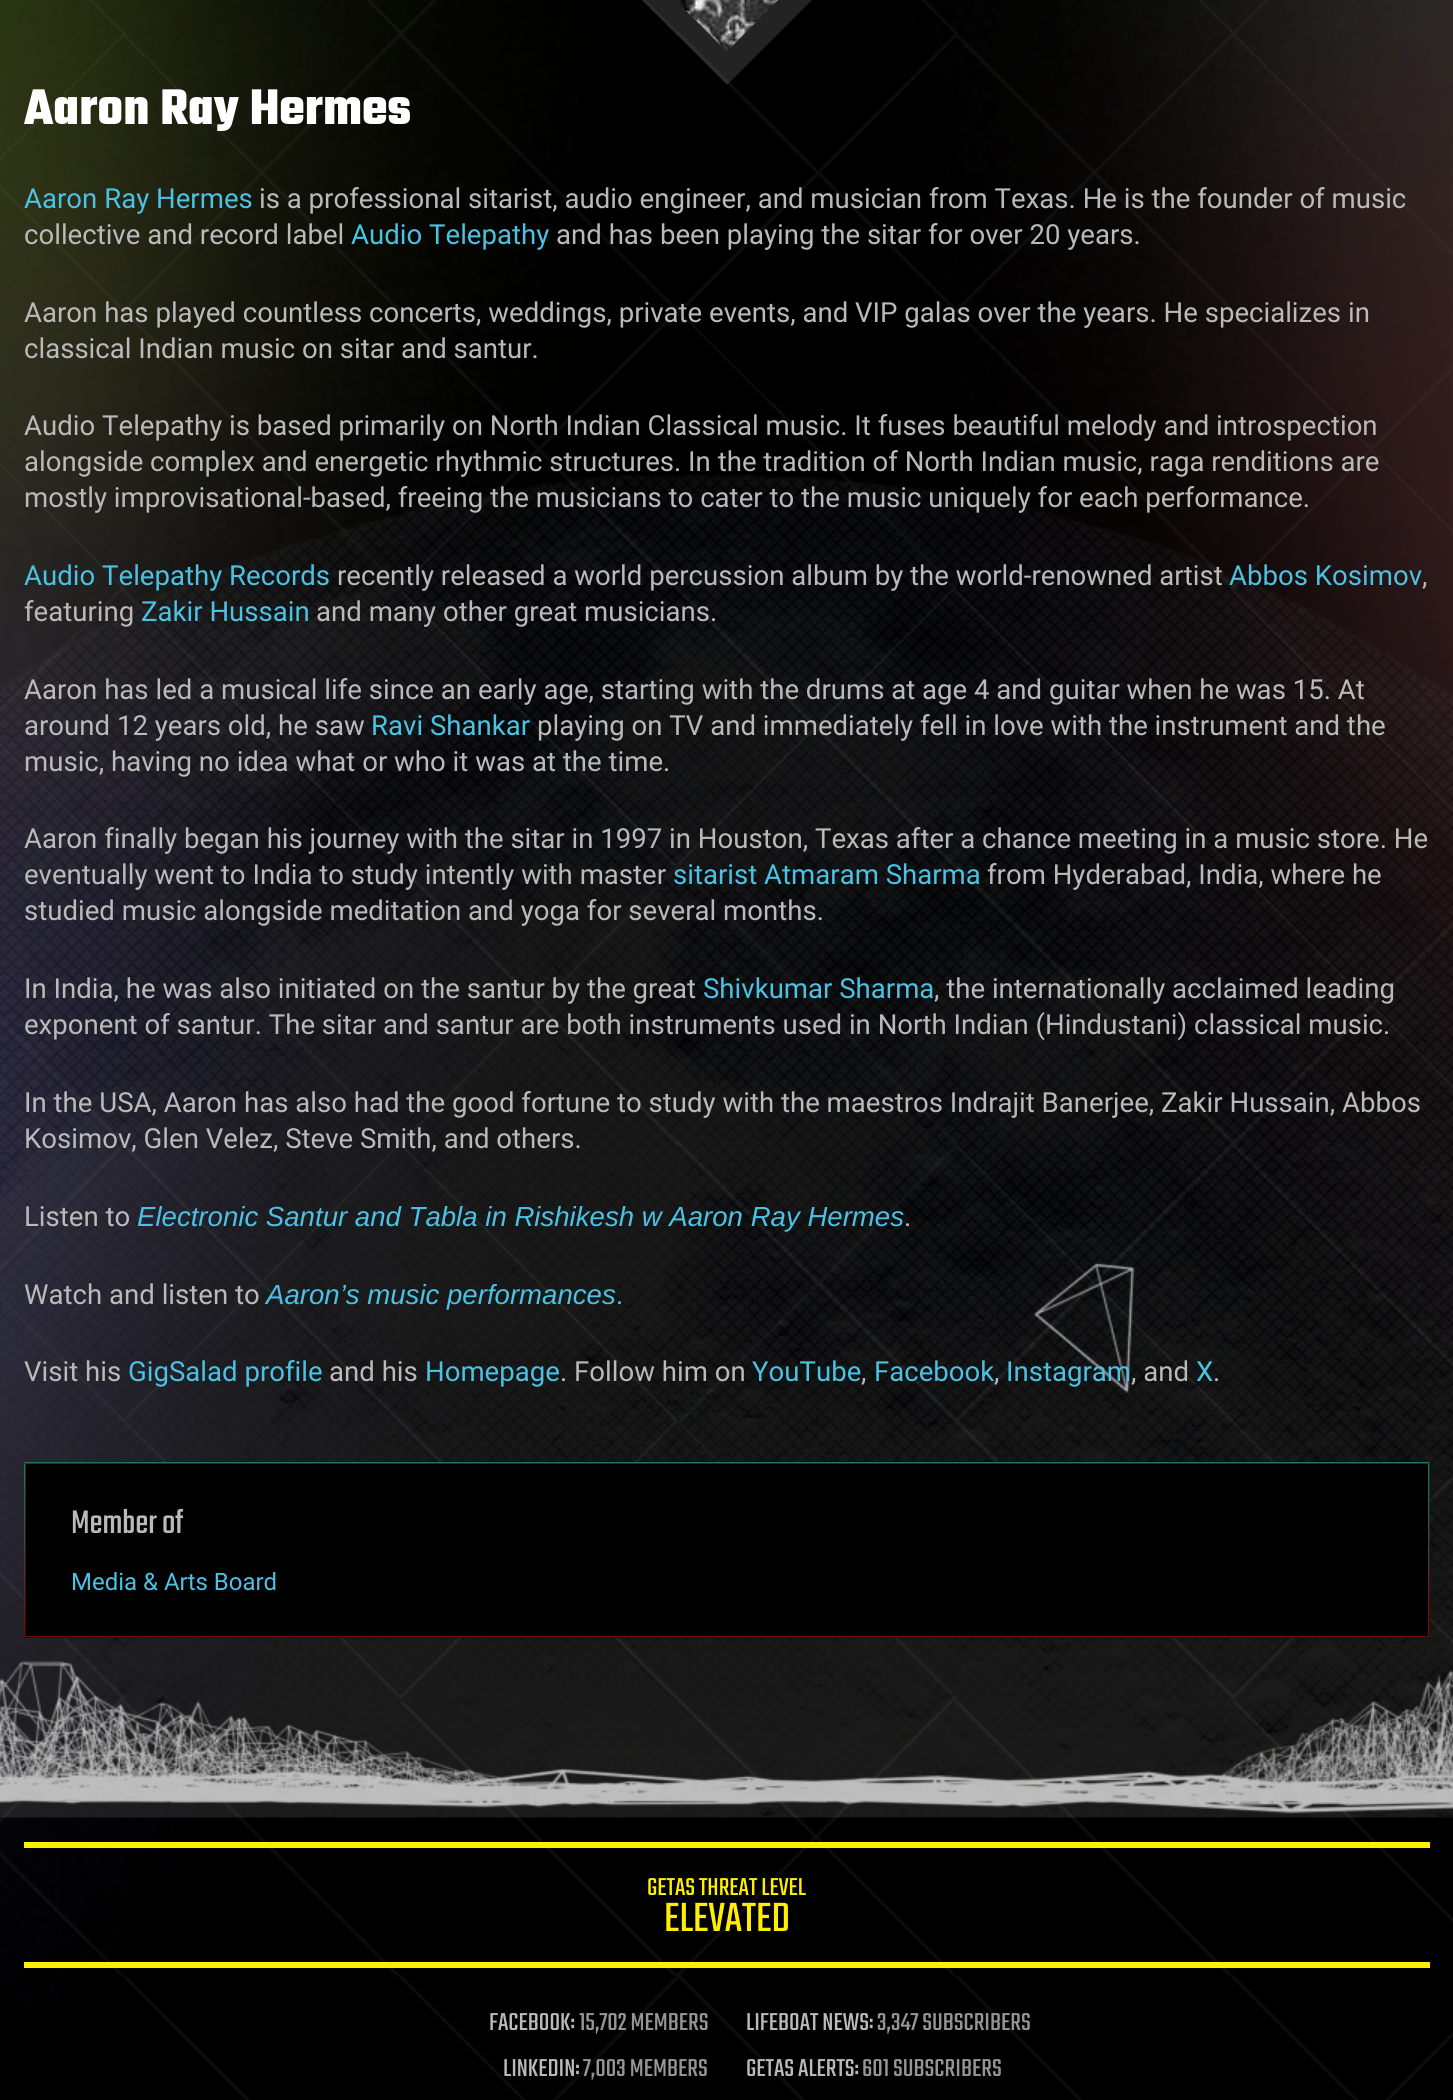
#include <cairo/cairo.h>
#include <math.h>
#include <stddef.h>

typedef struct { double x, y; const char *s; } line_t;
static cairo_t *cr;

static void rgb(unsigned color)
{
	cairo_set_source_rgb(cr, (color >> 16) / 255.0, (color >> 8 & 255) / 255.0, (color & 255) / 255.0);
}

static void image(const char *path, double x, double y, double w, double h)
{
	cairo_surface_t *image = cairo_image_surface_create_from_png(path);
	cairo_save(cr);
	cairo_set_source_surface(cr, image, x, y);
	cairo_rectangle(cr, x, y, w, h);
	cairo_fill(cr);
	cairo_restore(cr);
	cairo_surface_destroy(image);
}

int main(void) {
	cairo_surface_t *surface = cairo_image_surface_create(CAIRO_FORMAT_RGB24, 1453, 2100);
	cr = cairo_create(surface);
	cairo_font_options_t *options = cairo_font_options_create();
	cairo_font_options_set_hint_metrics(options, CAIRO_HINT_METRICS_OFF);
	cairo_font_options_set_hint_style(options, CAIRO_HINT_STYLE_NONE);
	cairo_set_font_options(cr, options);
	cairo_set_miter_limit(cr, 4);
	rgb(0x000000);
	cairo_paint(cr);
	image("img/1.png", 0, 0, 1453, 2100);
	cairo_set_source_rgba(cr, 1, 1, 1, 0.14);
	cairo_new_path(cr);
	cairo_move_to(cr, 165, -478);
	cairo_line_to(cr, 726, -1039);
	cairo_line_to(cr, 727, -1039);
	cairo_line_to(cr, 1289, -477);
	cairo_line_to(cr, 727, 85);
	cairo_line_to(cr, 165, -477);
	cairo_close_path(cr);
	cairo_fill(cr);
	image("img/2.png", 677, 0, 101, 52);
	image("img/4.png", 0, 474, 1453, 1344);
	rgb(0x000000);
	cairo_rectangle(cr, 24, 1463, 1406, 175);
	cairo_fill(cr);
	image("img/3.png", 24, 1462, 1406, 176);
	rgb(0xffee02);
	cairo_rectangle(cr, 24, 1842, 1406, 6);
	cairo_fill(cr);
	cairo_rectangle(cr, 24, 1962, 1406, 6);
	cairo_fill(cr);
	cairo_select_font_face(cr, "Teko", CAIRO_FONT_SLANT_NORMAL, CAIRO_FONT_WEIGHT_BOLD);
	cairo_set_font_size(cr, 54);
	rgb(0xffffff);
	cairo_move_to(cr, 24, 124);
	cairo_show_text(cr, "Aaron Ray Hermes");
	cairo_select_font_face(cr, "Roboto", CAIRO_FONT_SLANT_NORMAL, CAIRO_FONT_WEIGHT_NORMAL);
	cairo_set_font_size(cr, 27.6);
	rgb(0x4bc1e4);
	cairo_move_to(cr, 24, 208);
	cairo_show_text(cr, "Aaron Ray Hermes");
	rgb(0xbababa);
	cairo_move_to(cr, 259, 208);
	cairo_show_text(cr, "is a professional sitarist, audio engineer, and musician from Texas. He is the founder of music");
	cairo_move_to(cr, 24, 244);
	cairo_show_text(cr, "collective and record label");
	rgb(0x4bc1e4);
	cairo_move_to(cr, 351, 244);
	cairo_show_text(cr, "Audio Telepathy");
	rgb(0xbababa);
	{
		static const line_t items[] = {
			{556, 244, "and has been playing the sitar for over 20 years."},
			{24, 322, "Aaron has played countless concerts, weddings, private events, and VIP galas over the years. He specializes in"},
			{24, 358, "classical Indian music on sitar and santur."},
			{24, 435, "Audio Telepathy is based primarily on North Indian Classical music. It fuses beautiful melody and introspection"},
			{24, 471, "alongside complex and energetic rhythmic structures. In the tradition of North Indian music, raga renditions are"},
			{24, 507, "mostly improvisational-based, freeing the musicians to cater to the music uniquely for each performance."},
		};
		for (size_t i = 0; i < sizeof items / sizeof *items; i++) {
			cairo_move_to(cr, items[i].x, items[i].y);
			cairo_show_text(cr, items[i].s);
		}
	}
	rgb(0x4bc1e4);
	cairo_move_to(cr, 24, 585);
	cairo_show_text(cr, "Audio Telepathy Records");
	rgb(0xbababa);
	cairo_move_to(cr, 337, 585);
	cairo_show_text(cr, "recently released a world percussion album by the world-renowned artist");
	rgb(0x4bc1e4);
	cairo_move_to(cr, 1229, 585);
	cairo_show_text(cr, "Abbos Kosimov");
	rgb(0xbababa);
	cairo_move_to(cr, 1422, 585);
	cairo_show_text(cr, ",");
	cairo_move_to(cr, 24, 621);
	cairo_show_text(cr, "featuring");
	rgb(0x4bc1e4);
	cairo_move_to(cr, 141, 621);
	cairo_show_text(cr, "Zakir Hussain");
	rgb(0xbababa);
	{
		static const line_t items[] = {
			{316, 621, "and many other great musicians."},
			{24, 699, "Aaron has led a musical life since an early age, starting with the drums at age 4 and guitar when he was 15. At"},
			{24, 735, "around 12 years old, he saw"},
		};
		for (size_t i = 0; i < sizeof items / sizeof *items; i++) {
			cairo_move_to(cr, items[i].x, items[i].y);
			cairo_show_text(cr, items[i].s);
		}
	}
	rgb(0x4bc1e4);
	cairo_move_to(cr, 371, 735);
	cairo_show_text(cr, "Ravi Shankar");
	rgb(0xbababa);
	{
		static const line_t items[] = {
			{537, 735, "playing on TV and immediately fell in love with the instrument and the"},
			{24, 771, "music, having no idea what or who it was at the time."},
			{24, 848, "Aaron finally began his journey with the sitar in 1997 in Houston, Texas after a chance meeting in a music store. He"},
			{24, 884, "eventually went to India to study intently with master"},
		};
		for (size_t i = 0; i < sizeof items / sizeof *items; i++) {
			cairo_move_to(cr, items[i].x, items[i].y);
			cairo_show_text(cr, items[i].s);
		}
	}
	rgb(0x4bc1e4);
	cairo_move_to(cr, 673, 884);
	cairo_show_text(cr, "sitarist Atmaram Sharma");
	rgb(0xbababa);
	{
		static const line_t items[] = {
			{987, 884, "from Hyderabad, India, where he"},
			{24, 920, "studied music alongside meditation and yoga for several months."},
			{24, 998, "In India, he was also initiated on the santur by the great"},
		};
		for (size_t i = 0; i < sizeof items / sizeof *items; i++) {
			cairo_move_to(cr, items[i].x, items[i].y);
			cairo_show_text(cr, items[i].s);
		}
	}
	rgb(0x4bc1e4);
	cairo_move_to(cr, 703, 998);
	cairo_show_text(cr, "Shivkumar Sharma");
	rgb(0xbababa);
	{
		static const line_t items[] = {
			{934, 998, ", the internationally acclaimed leading"},
			{24, 1034, "exponent of santur. The sitar and santur are both instruments used in North Indian (Hindustani) classical music."},
			{24, 1112, "In the USA, Aaron has also had the good fortune to study with the maestros Indrajit Banerjee, Zakir Hussain, Abbos"},
			{24, 1148, "Kosimov, Glen Velez, Steve Smith, and others."},
			{24, 1226, "Listen to"},
		};
		for (size_t i = 0; i < sizeof items / sizeof *items; i++) {
			cairo_move_to(cr, items[i].x, items[i].y);
			cairo_show_text(cr, items[i].s);
		}
	}
	cairo_select_font_face(cr, "Liberation Sans", CAIRO_FONT_SLANT_ITALIC, CAIRO_FONT_WEIGHT_NORMAL);
	rgb(0x4bc1e4);
	cairo_move_to(cr, 137, 1226);
	cairo_show_text(cr, "Electronic Santur and Tabla in Rishikesh w Aaron Ray Hermes");
	cairo_select_font_face(cr, "Roboto", CAIRO_FONT_SLANT_NORMAL, CAIRO_FONT_WEIGHT_NORMAL);
	rgb(0xbababa);
	cairo_move_to(cr, 904, 1226);
	cairo_show_text(cr, ".");
	cairo_move_to(cr, 24, 1304);
	cairo_show_text(cr, "Watch and listen to");
	cairo_select_font_face(cr, "Liberation Sans", CAIRO_FONT_SLANT_ITALIC, CAIRO_FONT_WEIGHT_NORMAL);
	rgb(0x4bc1e4);
	cairo_move_to(cr, 266, 1304);
	cairo_show_text(cr, "Aaron’s music performances");
	cairo_select_font_face(cr, "Roboto", CAIRO_FONT_SLANT_NORMAL, CAIRO_FONT_WEIGHT_NORMAL);
	cairo_move_to(cr, 616, 1304);
	cairo_show_text(cr, ".");
	rgb(0xbababa);
	cairo_move_to(cr, 24, 1381);
	cairo_show_text(cr, "Visit his");
	rgb(0x4bc1e4);
	cairo_move_to(cr, 128, 1381);
	cairo_show_text(cr, "GigSalad profile");
	rgb(0xbababa);
	cairo_move_to(cr, 329, 1381);
	cairo_show_text(cr, "and his");
	rgb(0x4bc1e4);
	cairo_move_to(cr, 425, 1381);
	cairo_show_text(cr, "Homepage");
	rgb(0xbababa);
	cairo_move_to(cr, 560, 1381);
	cairo_show_text(cr, ". Follow him on");
	rgb(0x4bc1e4);
	cairo_move_to(cr, 752, 1381);
	cairo_show_text(cr, "YouTube");
	rgb(0xbababa);
	cairo_move_to(cr, 861, 1381);
	cairo_show_text(cr, ",");
	rgb(0x4bc1e4);
	cairo_move_to(cr, 874, 1381);
	cairo_show_text(cr, "Facebook");
	rgb(0xbababa);
	cairo_move_to(cr, 994, 1381);
	cairo_show_text(cr, ",");
	rgb(0x4bc1e4);
	cairo_move_to(cr, 1006, 1381);
	cairo_show_text(cr, "Instagram");
	rgb(0xbababa);
	cairo_move_to(cr, 1131, 1381);
	cairo_show_text(cr, ", and");
	rgb(0x4bc1e4);
	cairo_move_to(cr, 1196, 1381);
	cairo_show_text(cr, "X");
	rgb(0xbababa);
	cairo_move_to(cr, 1213, 1381);
	cairo_show_text(cr, ".");
	cairo_select_font_face(cr, "Teko", CAIRO_FONT_SLANT_NORMAL, CAIRO_FONT_WEIGHT_NORMAL);
	cairo_set_font_size(cr, 36);
	cairo_move_to(cr, 71, 1533);
	cairo_show_text(cr, "Member of");
	cairo_select_font_face(cr, "Roboto", CAIRO_FONT_SLANT_NORMAL, CAIRO_FONT_WEIGHT_NORMAL);
	cairo_set_font_size(cr, 24);
	rgb(0x4bc1e4);
	cairo_move_to(cr, 71, 1590);
	cairo_show_text(cr, "Media & Arts Board");
	cairo_select_font_face(cr, "Teko", CAIRO_FONT_SLANT_NORMAL, CAIRO_FONT_WEIGHT_NORMAL);
	cairo_set_font_size(cr, 27);
	rgb(0xffee02);
	cairo_move_to(cr, 647, 1895);
	cairo_show_text(cr, "GETAS THREAT LEVEL");
	cairo_set_font_size(cr, 45);
	cairo_move_to(cr, 664, 1931);
	cairo_show_text(cr, "ELEVATED");
	cairo_set_font_size(cr, 27);
	rgb(0xbababa);
	cairo_move_to(cr, 489, 2030);
	cairo_show_text(cr, "FACEBOOK:");
	rgb(0x959595);
	cairo_move_to(cr, 579, 2030);
	cairo_show_text(cr, "15,702 MEMBERS");
	rgb(0xbababa);
	cairo_move_to(cr, 746, 2030);
	cairo_show_text(cr, "LIFEBOAT NEWS:");
	rgb(0x959595);
	cairo_move_to(cr, 877, 2030);
	cairo_show_text(cr, "3,347 SUBSCRIBERS");
	rgb(0xbababa);
	cairo_move_to(cr, 503, 2076);
	cairo_show_text(cr, "LINKEDIN:");
	rgb(0x959595);
	cairo_move_to(cr, 583, 2076);
	cairo_show_text(cr, "7,003 MEMBERS");
	rgb(0xbababa);
	cairo_move_to(cr, 746, 2076);
	cairo_show_text(cr, "GETAS ALERTS:");
	rgb(0x959595);
	cairo_move_to(cr, 862, 2076);
	cairo_show_text(cr, "601 SUBSCRIBERS");
	cairo_surface_write_to_png(surface, "page.png");
	cairo_font_options_destroy(options);
	cairo_destroy(cr);
	cairo_surface_destroy(surface);
	return 0;
}
